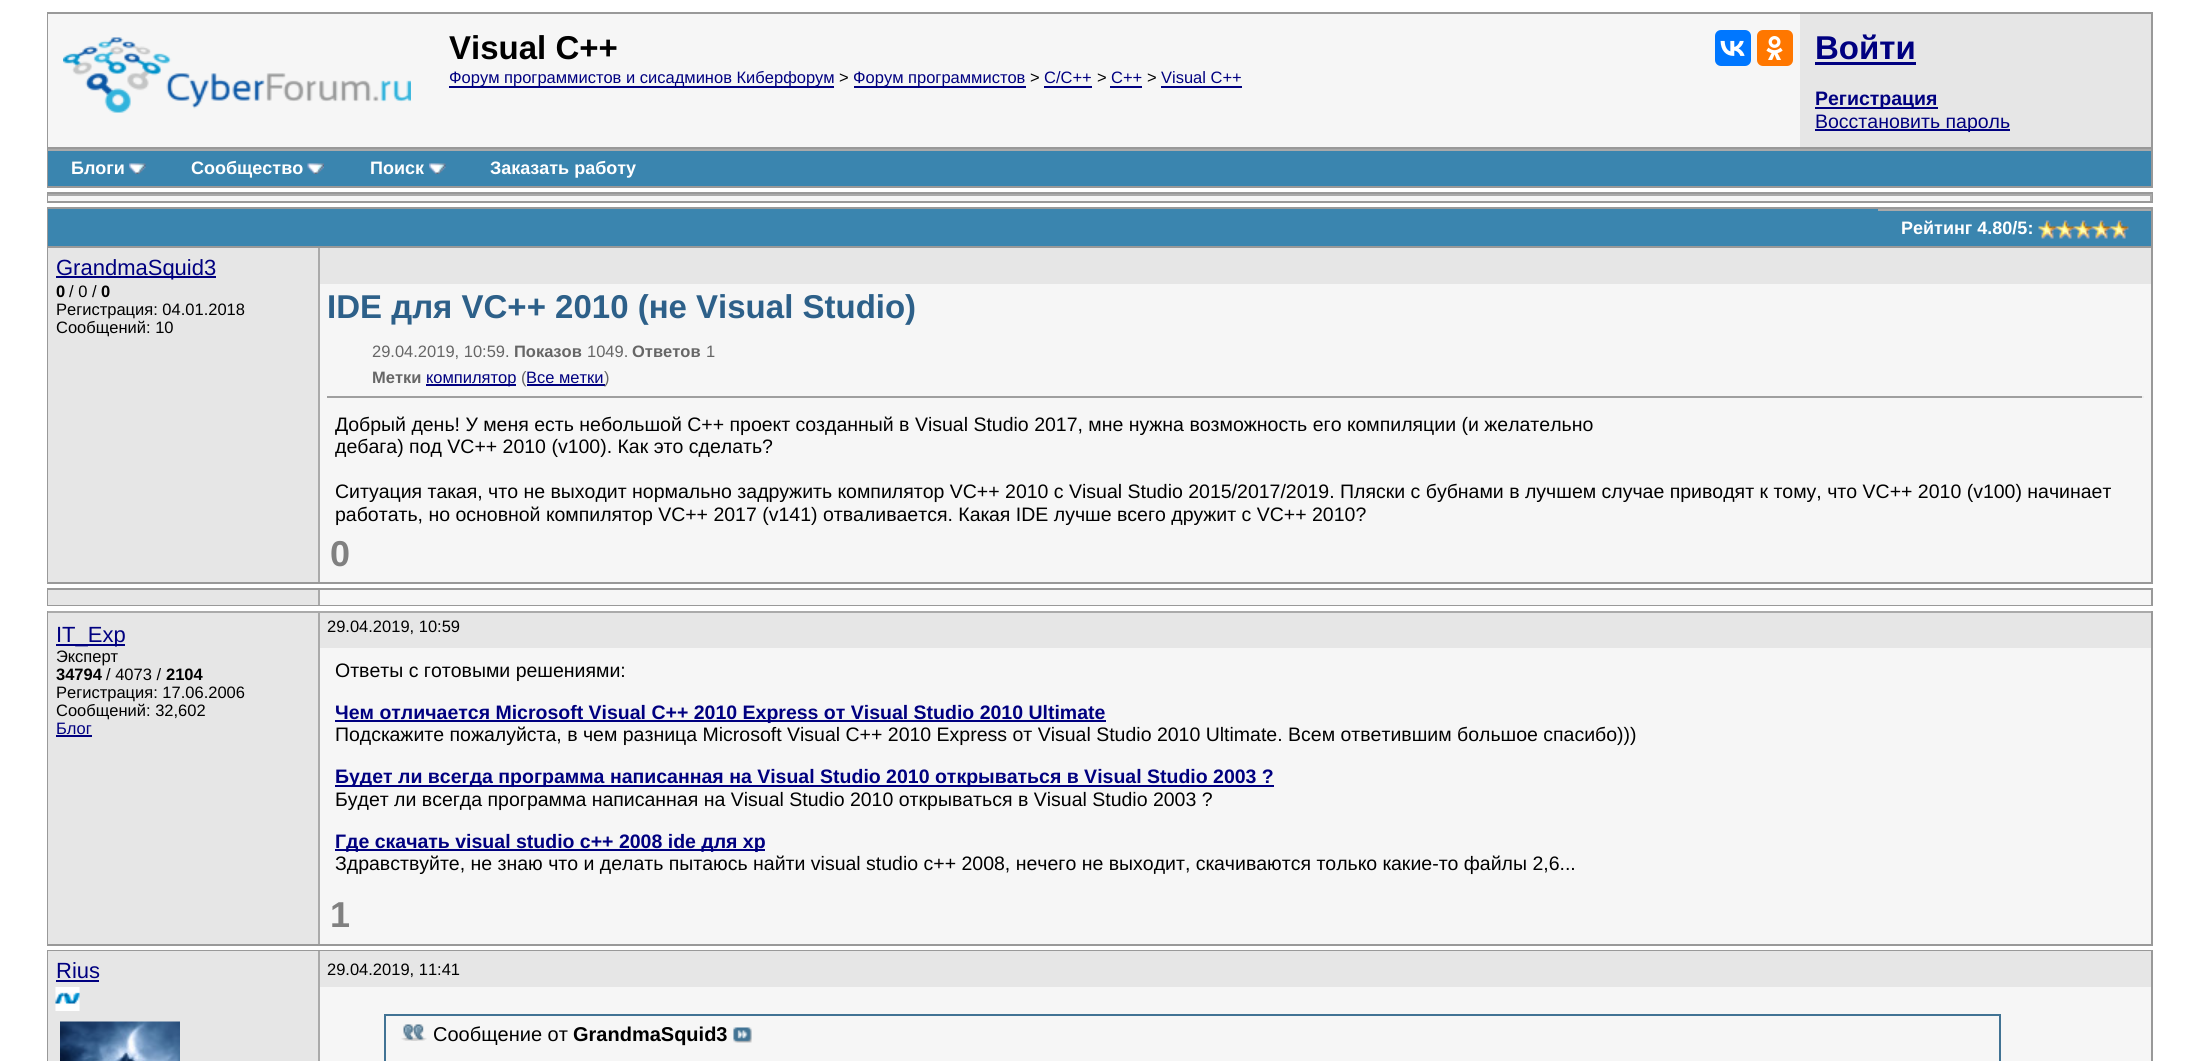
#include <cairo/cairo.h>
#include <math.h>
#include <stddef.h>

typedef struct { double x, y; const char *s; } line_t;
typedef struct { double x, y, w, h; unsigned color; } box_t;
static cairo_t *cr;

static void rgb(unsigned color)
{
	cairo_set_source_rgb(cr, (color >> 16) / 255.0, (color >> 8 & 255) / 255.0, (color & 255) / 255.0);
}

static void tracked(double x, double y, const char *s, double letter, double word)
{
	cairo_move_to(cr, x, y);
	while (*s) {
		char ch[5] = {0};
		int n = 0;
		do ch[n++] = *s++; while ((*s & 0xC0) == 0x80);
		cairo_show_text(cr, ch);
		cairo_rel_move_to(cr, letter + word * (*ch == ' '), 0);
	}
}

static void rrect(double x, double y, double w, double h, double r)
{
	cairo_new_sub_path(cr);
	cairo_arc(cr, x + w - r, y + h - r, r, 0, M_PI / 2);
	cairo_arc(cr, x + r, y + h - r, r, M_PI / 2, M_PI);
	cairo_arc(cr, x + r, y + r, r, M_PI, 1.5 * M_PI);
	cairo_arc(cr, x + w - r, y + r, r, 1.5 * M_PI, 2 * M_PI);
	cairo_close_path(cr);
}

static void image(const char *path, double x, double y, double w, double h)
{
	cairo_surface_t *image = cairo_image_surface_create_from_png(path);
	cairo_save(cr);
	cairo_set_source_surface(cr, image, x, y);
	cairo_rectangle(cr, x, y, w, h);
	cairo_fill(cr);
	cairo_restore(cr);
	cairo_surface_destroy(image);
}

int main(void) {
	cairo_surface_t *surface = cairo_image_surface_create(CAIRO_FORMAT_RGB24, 2198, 1061);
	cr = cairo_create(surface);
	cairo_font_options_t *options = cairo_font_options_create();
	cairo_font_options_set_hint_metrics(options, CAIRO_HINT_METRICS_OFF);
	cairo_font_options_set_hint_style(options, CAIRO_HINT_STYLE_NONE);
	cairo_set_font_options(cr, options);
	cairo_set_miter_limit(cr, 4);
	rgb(0xffffff);
	cairo_paint(cr);
	cairo_rectangle(cr, 48, 13, 2104, 135);
	rgb(0x999999);
	cairo_stroke(cr);
	rgb(0xf6f6f6);
	cairo_rectangle(cr, 48, 14, 1752, 133);
	cairo_fill(cr);
	image("img/1.png", 63, 37, 348, 76);
	rgb(0x0077ff);
	rrect(1715, 30, 36, 36, 6);
	cairo_fill(cr);
	image("img/2.png", 1720, 40, 25, 16);
	rgb(0xff7700);
	rrect(1757, 30, 36, 36, 6);
	cairo_fill(cr);
	image("img/3.png", 1766, 36, 17, 24);
	{
		static const box_t items[] = {
			{449, 86, 385, 2, 0x000080},
			{854, 86, 172, 2, 0x000080},
			{1044, 86, 48, 2, 0x000080},
			{1110, 86, 32, 2, 0x000080},
			{1161, 86, 81, 2, 0x000080},
			{1800, 14, 351, 133, 0xe6e6e6},
			{1815, 62, 101, 3, 0x000080},
			{1815, 107, 123, 2, 0x000080},
			{1815, 129, 195, 2, 0x000080},
			{2151, 149, 2, 39, 0x999999},
			{47, 186, 2106, 2, 0x999999},
			{47, 149, 2, 39, 0x999999},
			{48, 151, 2103, 35, 0x3a85af},
			{48, 149, 2103, 2, 0xaaaaaa},
		};
		for (size_t i = 0; i < sizeof items / sizeof *items; i++) {
			rgb(items[i].color);
			cairo_rectangle(cr, items[i].x, items[i].y, items[i].w, items[i].h);
			cairo_fill(cr);
		}
	}
	image("img/4.png", 129, 163, 17, 11);
	image("img/5.png", 307, 163, 17, 11);
	image("img/6.png", 429, 163, 17, 11);
	cairo_rectangle(cr, 48, 193, 2104, 9);
	rgb(0x999999);
	cairo_stroke(cr);
	{
		static const box_t items[] = {
			{48, 196, 2103, 5, 0xf6f6f6},
			{48, 194, 2103, 2, 0xaaaaaa},
			{2150, 194, 2, 7, 0xaaaaaa},
			{47, 207, 2106, 2, 0x999999},
			{2151, 207, 2, 39, 0x999999},
			{47, 207, 2, 39, 0x999999},
			{48, 209, 1830, 37, 0x3a85af},
			{1878, 211, 273, 35, 0x3a85af},
			{1878, 209, 273, 2, 0xaaaaaa},
		};
		for (size_t i = 0; i < sizeof items / sizeof *items; i++) {
			rgb(items[i].color);
			cairo_rectangle(cr, items[i].x, items[i].y, items[i].w, items[i].h);
			cairo_fill(cr);
		}
	}
	image("img/7.png", 2038, 220, 91, 19);
	cairo_rectangle(cr, 48, 247, 2104, 336);
	rgb(0x999999);
	cairo_stroke(cr);
	{
		static const box_t items[] = {
			{48, 248, 270, 334, 0xe6e6e6},
			{318, 248, 2, 334, 0xaaaaaa},
			{56, 276, 160, 2, 0x000080},
			{320, 248, 1831, 36, 0xe6e6e6},
			{320, 284, 1831, 298, 0xf6f6f6},
			{426, 384, 90, 2, 0x000080},
			{527, 384, 78, 2, 0x000080},
			{327, 396, 1817, 2, 0x9f9f9f},
			{2142, 396, 2, 2, 0xeeeeee},
		};
		for (size_t i = 0; i < sizeof items / sizeof *items; i++) {
			rgb(items[i].color);
			cairo_rectangle(cr, items[i].x, items[i].y, items[i].w, items[i].h);
			cairo_fill(cr);
		}
	}
	cairo_rectangle(cr, 48, 589, 2104, 16);
	rgb(0x999999);
	cairo_stroke(cr);
	{
		static const box_t items[] = {
			{48, 590, 270, 15, 0xe6e6e6},
			{318, 590, 2, 15, 0xaaaaaa},
			{320, 590, 1831, 15, 0xf6f6f6},
			{2151, 611, 2, 334, 0x999999},
			{47, 944, 2106, 2, 0x999999},
			{47, 611, 2, 334, 0x999999},
			{48, 613, 270, 331, 0xe6e6e6},
			{48, 611, 2103, 2, 0xaaaaaa},
			{318, 611, 2, 333, 0xaaaaaa},
			{56, 644, 69, 2, 0x000080},
			{56, 735, 36, 2, 0x000080},
			{320, 613, 1831, 35, 0xe6e6e6},
			{320, 648, 1831, 296, 0xf6f6f6},
			{335, 720, 771, 2, 0x000080},
			{335, 785, 939, 2, 0x000080},
			{335, 849, 430, 2, 0x000080},
		};
		for (size_t i = 0; i < sizeof items / sizeof *items; i++) {
			rgb(items[i].color);
			cairo_rectangle(cr, items[i].x, items[i].y, items[i].w, items[i].h);
			cairo_fill(cr);
		}
	}
	cairo_rectangle(cr, 48, 951, 2104, 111);
	rgb(0x999999);
	cairo_stroke(cr);
	{
		static const box_t items[] = {
			{48, 951, 270, 110, 0xe6e6e6},
			{318, 951, 2, 110, 0xaaaaaa},
			{56, 980, 43, 2, 0x000080},
		};
		for (size_t i = 0; i < sizeof items / sizeof *items; i++) {
			rgb(items[i].color);
			cairo_rectangle(cr, items[i].x, items[i].y, items[i].w, items[i].h);
			cairo_fill(cr);
		}
	}
	image("img/8.png", 55, 987, 25, 24);
	image("img/9.png", 60, 1021, 120, 40);
	rgb(0xe6e6e6);
	cairo_rectangle(cr, 320, 951, 1831, 36);
	cairo_fill(cr);
	rgb(0xf6f6f6);
	cairo_rectangle(cr, 320, 987, 1831, 74);
	cairo_fill(cr);
	cairo_rectangle(cr, 385, 1015, 1615, 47);
	rgb(0x417394);
	cairo_stroke(cr);
	image("img/10.png", 401, 1024, 26, 17);
	image("img/11.png", 733, 1027, 19, 16);
	cairo_select_font_face(cr, "Liberation Sans", CAIRO_FONT_SLANT_NORMAL, CAIRO_FONT_WEIGHT_BOLD);
	cairo_set_font_size(cr, 33);
	rgb(0x000000);
	cairo_move_to(cr, 449, 59);
	cairo_show_text(cr, "Visual C++");
	cairo_select_font_face(cr, "Liberation Sans", CAIRO_FONT_SLANT_NORMAL, CAIRO_FONT_WEIGHT_NORMAL);
	cairo_set_font_size(cr, 16.5);
	rgb(0x000080);
	cairo_move_to(cr, 449, 83);
	cairo_show_text(cr, "Форум программистов и сисадминов Киберфорум");
	rgb(0x000000);
	cairo_move_to(cr, 839, 83);
	cairo_show_text(cr, ">");
	rgb(0x000080);
	cairo_move_to(cr, 853, 83);
	cairo_show_text(cr, "Форум программистов");
	rgb(0x000000);
	cairo_move_to(cr, 1030, 83);
	cairo_show_text(cr, ">");
	rgb(0x000080);
	cairo_move_to(cr, 1044, 83);
	cairo_show_text(cr, "C/C++");
	rgb(0x000000);
	cairo_move_to(cr, 1097, 83);
	cairo_show_text(cr, ">");
	rgb(0x000080);
	cairo_move_to(cr, 1111, 83);
	cairo_show_text(cr, "C++");
	rgb(0x000000);
	cairo_move_to(cr, 1147, 83);
	cairo_show_text(cr, ">");
	rgb(0x000080);
	cairo_move_to(cr, 1161, 83);
	cairo_show_text(cr, "Visual C++");
	cairo_select_font_face(cr, "Liberation Sans", CAIRO_FONT_SLANT_NORMAL, CAIRO_FONT_WEIGHT_BOLD);
	cairo_set_font_size(cr, 33);
	cairo_move_to(cr, 1815, 59);
	cairo_show_text(cr, "Войти");
	cairo_set_font_size(cr, 19.5);
	cairo_move_to(cr, 1815, 105);
	cairo_show_text(cr, "Регистрация");
	cairo_select_font_face(cr, "Liberation Sans", CAIRO_FONT_SLANT_NORMAL, CAIRO_FONT_WEIGHT_NORMAL);
	cairo_move_to(cr, 1815, 128);
	cairo_show_text(cr, "Восстановить пароль");
	cairo_select_font_face(cr, "Liberation Sans", CAIRO_FONT_SLANT_NORMAL, CAIRO_FONT_WEIGHT_BOLD);
	cairo_set_font_size(cr, 18);
	rgb(0xffffff);
	{
		static const line_t items[] = {
			{71, 174, "Блоги"},
			{191, 174, "Сообщество"},
			{370, 174, "Поиск"},
			{490, 174, "Заказать работу"},
			{1901, 234, "Рейтинг 4.80/5:"},
		};
		for (size_t i = 0; i < sizeof items / sizeof *items; i++) {
			cairo_move_to(cr, items[i].x, items[i].y);
			cairo_show_text(cr, items[i].s);
		}
	}
	cairo_select_font_face(cr, "Liberation Sans", CAIRO_FONT_SLANT_NORMAL, CAIRO_FONT_WEIGHT_NORMAL);
	cairo_set_font_size(cr, 22);
	rgb(0x000080);
	cairo_move_to(cr, 56, 275);
	cairo_show_text(cr, "GrandmaSquid3");
	cairo_select_font_face(cr, "Liberation Sans", CAIRO_FONT_SLANT_NORMAL, CAIRO_FONT_WEIGHT_BOLD);
	cairo_set_font_size(cr, 16.5);
	rgb(0x000000);
	cairo_move_to(cr, 56, 297);
	cairo_show_text(cr, "0");
	cairo_select_font_face(cr, "Liberation Sans", CAIRO_FONT_SLANT_NORMAL, CAIRO_FONT_WEIGHT_NORMAL);
	cairo_move_to(cr, 69, 297);
	cairo_show_text(cr, "/ 0 /");
	cairo_select_font_face(cr, "Liberation Sans", CAIRO_FONT_SLANT_NORMAL, CAIRO_FONT_WEIGHT_BOLD);
	cairo_move_to(cr, 101, 297);
	cairo_show_text(cr, "0");
	cairo_select_font_face(cr, "Liberation Sans", CAIRO_FONT_SLANT_NORMAL, CAIRO_FONT_WEIGHT_NORMAL);
	cairo_move_to(cr, 56, 315);
	cairo_show_text(cr, "Регистрация: 04.01.2018");
	cairo_move_to(cr, 56, 333);
	cairo_show_text(cr, "Сообщений: 10");
	cairo_select_font_face(cr, "Liberation Sans", CAIRO_FONT_SLANT_NORMAL, CAIRO_FONT_WEIGHT_BOLD);
	cairo_set_font_size(cr, 33);
	rgb(0x2d6089);
	cairo_move_to(cr, 327, 318);
	cairo_show_text(cr, "IDE для VC++ 2010 (не Visual Studio)");
	cairo_select_font_face(cr, "Liberation Sans", CAIRO_FONT_SLANT_NORMAL, CAIRO_FONT_WEIGHT_NORMAL);
	cairo_set_font_size(cr, 16.5);
	rgb(0x666666);
	cairo_move_to(cr, 372, 357);
	cairo_show_text(cr, "29.04.2019, 10:59.");
	cairo_select_font_face(cr, "Liberation Sans", CAIRO_FONT_SLANT_NORMAL, CAIRO_FONT_WEIGHT_BOLD);
	cairo_move_to(cr, 514, 357);
	cairo_show_text(cr, "Показов");
	cairo_select_font_face(cr, "Liberation Sans", CAIRO_FONT_SLANT_NORMAL, CAIRO_FONT_WEIGHT_NORMAL);
	cairo_move_to(cr, 587, 357);
	cairo_show_text(cr, "1049.");
	cairo_select_font_face(cr, "Liberation Sans", CAIRO_FONT_SLANT_NORMAL, CAIRO_FONT_WEIGHT_BOLD);
	cairo_move_to(cr, 632, 357);
	cairo_show_text(cr, "Ответов");
	cairo_select_font_face(cr, "Liberation Sans", CAIRO_FONT_SLANT_NORMAL, CAIRO_FONT_WEIGHT_NORMAL);
	cairo_move_to(cr, 706, 357);
	cairo_show_text(cr, "1");
	cairo_select_font_face(cr, "Liberation Sans", CAIRO_FONT_SLANT_NORMAL, CAIRO_FONT_WEIGHT_BOLD);
	cairo_move_to(cr, 372, 383);
	cairo_show_text(cr, "Метки");
	cairo_select_font_face(cr, "Liberation Sans", CAIRO_FONT_SLANT_NORMAL, CAIRO_FONT_WEIGHT_NORMAL);
	rgb(0x000080);
	cairo_move_to(cr, 426, 383);
	cairo_show_text(cr, "компилятор");
	rgb(0x666666);
	cairo_move_to(cr, 521, 383);
	cairo_show_text(cr, "(");
	rgb(0x000080);
	cairo_move_to(cr, 526, 383);
	cairo_show_text(cr, "Все метки");
	rgb(0x666666);
	cairo_move_to(cr, 604, 383);
	cairo_show_text(cr, ")");
	cairo_set_font_size(cr, 19.5);
	rgb(0x000000);
	{
		static const line_t items[] = {
			{335, 431, "Добрый день! У меня есть небольшой C++ проект созданный в Visual Studio 2017, мне нужна возможность его компиляции (и желательно"},
			{335, 453, "дебага) под VC++ 2010 (v100). Как это сделать?"},
			{335, 498, "Ситуация такая, что не выходит нормально задружить компилятор VC++ 2010 с Visual Studio 2015/2017/2019. Пляски с бубнами в лучшем случае приводят к тому, что VC++ 2010 (v100) начинает"},
			{335, 521, "работать, но основной компилятор VC++ 2017 (v141) отваливается. Какая IDE лучше всего дружит с VC++ 2010?"},
		};
		for (size_t i = 0; i < sizeof items / sizeof *items; i++) {
			cairo_move_to(cr, items[i].x, items[i].y);
			cairo_show_text(cr, items[i].s);
		}
	}
	cairo_select_font_face(cr, "Liberation Sans", CAIRO_FONT_SLANT_NORMAL, CAIRO_FONT_WEIGHT_BOLD);
	cairo_set_font_size(cr, 36);
	rgb(0x808080);
	tracked(330, 566, "0", -2, 0);
	cairo_select_font_face(cr, "Liberation Sans", CAIRO_FONT_SLANT_NORMAL, CAIRO_FONT_WEIGHT_NORMAL);
	cairo_set_font_size(cr, 22);
	rgb(0x000080);
	cairo_move_to(cr, 56, 642);
	cairo_show_text(cr, "IT_Exp");
	cairo_set_font_size(cr, 16.5);
	rgb(0x000000);
	cairo_move_to(cr, 56, 662);
	cairo_show_text(cr, "Эксперт");
	cairo_select_font_face(cr, "Liberation Sans", CAIRO_FONT_SLANT_NORMAL, CAIRO_FONT_WEIGHT_BOLD);
	cairo_move_to(cr, 56, 680);
	cairo_show_text(cr, "34794");
	cairo_select_font_face(cr, "Liberation Sans", CAIRO_FONT_SLANT_NORMAL, CAIRO_FONT_WEIGHT_NORMAL);
	cairo_move_to(cr, 106, 680);
	cairo_show_text(cr, "/ 4073 /");
	cairo_select_font_face(cr, "Liberation Sans", CAIRO_FONT_SLANT_NORMAL, CAIRO_FONT_WEIGHT_BOLD);
	cairo_move_to(cr, 166, 680);
	cairo_show_text(cr, "2104");
	cairo_select_font_face(cr, "Liberation Sans", CAIRO_FONT_SLANT_NORMAL, CAIRO_FONT_WEIGHT_NORMAL);
	cairo_move_to(cr, 56, 698);
	cairo_show_text(cr, "Регистрация: 17.06.2006");
	cairo_move_to(cr, 56, 716);
	cairo_show_text(cr, "Сообщений: 32,602");
	rgb(0x000080);
	cairo_move_to(cr, 56, 734);
	cairo_show_text(cr, "Блог");
	rgb(0x000000);
	cairo_move_to(cr, 327, 632);
	cairo_show_text(cr, "29.04.2019, 10:59");
	cairo_set_font_size(cr, 19.5);
	cairo_move_to(cr, 335, 677);
	cairo_show_text(cr, "Ответы с готовыми решениями:");
	cairo_select_font_face(cr, "Liberation Sans", CAIRO_FONT_SLANT_NORMAL, CAIRO_FONT_WEIGHT_BOLD);
	rgb(0x000080);
	cairo_move_to(cr, 335, 719);
	cairo_show_text(cr, "Чем отличается Microsoft Visual C++ 2010 Express от Visual Studio 2010 Ultimate");
	cairo_select_font_face(cr, "Liberation Sans", CAIRO_FONT_SLANT_NORMAL, CAIRO_FONT_WEIGHT_NORMAL);
	rgb(0x000000);
	cairo_move_to(cr, 335, 741);
	cairo_show_text(cr, "Подскажите пожалуйста, в чем разница Microsoft Visual C++ 2010 Express от Visual Studio 2010 Ultimate. Всем ответившим большое спасибо)))");
	cairo_select_font_face(cr, "Liberation Sans", CAIRO_FONT_SLANT_NORMAL, CAIRO_FONT_WEIGHT_BOLD);
	rgb(0x000080);
	cairo_move_to(cr, 335, 783);
	cairo_show_text(cr, "Будет ли всегда программа написанная на Visual Studio 2010 открываться в Visual Studio 2003 ?");
	cairo_select_font_face(cr, "Liberation Sans", CAIRO_FONT_SLANT_NORMAL, CAIRO_FONT_WEIGHT_NORMAL);
	rgb(0x000000);
	cairo_move_to(cr, 335, 806);
	cairo_show_text(cr, "Будет ли всегда программа написанная на Visual Studio 2010 открываться в Visual Studio 2003 ?");
	cairo_select_font_face(cr, "Liberation Sans", CAIRO_FONT_SLANT_NORMAL, CAIRO_FONT_WEIGHT_BOLD);
	rgb(0x000080);
	cairo_move_to(cr, 335, 848);
	cairo_show_text(cr, "Где скачать visual studio с++ 2008 ide для xp");
	cairo_select_font_face(cr, "Liberation Sans", CAIRO_FONT_SLANT_NORMAL, CAIRO_FONT_WEIGHT_NORMAL);
	rgb(0x000000);
	cairo_move_to(cr, 335, 870);
	cairo_show_text(cr, "Здравствуйте, не знаю что и делать пытаюсь найти visual studio с++ 2008, нечего не выходит, скачиваются только какие-то файлы 2,6...");
	cairo_select_font_face(cr, "Liberation Sans", CAIRO_FONT_SLANT_NORMAL, CAIRO_FONT_WEIGHT_BOLD);
	cairo_set_font_size(cr, 36);
	rgb(0x808080);
	tracked(330, 927, "1", -2, 0);
	cairo_select_font_face(cr, "Liberation Sans", CAIRO_FONT_SLANT_NORMAL, CAIRO_FONT_WEIGHT_NORMAL);
	cairo_set_font_size(cr, 22);
	rgb(0x000080);
	cairo_move_to(cr, 56, 978);
	cairo_show_text(cr, "Rius");
	cairo_set_font_size(cr, 16.5);
	rgb(0x000000);
	cairo_move_to(cr, 327, 975);
	cairo_show_text(cr, "29.04.2019, 11:41");
	cairo_set_font_size(cr, 20);
	cairo_move_to(cr, 433, 1041);
	cairo_show_text(cr, "Сообщение от");
	cairo_select_font_face(cr, "Liberation Sans", CAIRO_FONT_SLANT_NORMAL, CAIRO_FONT_WEIGHT_BOLD);
	cairo_move_to(cr, 573, 1041);
	cairo_show_text(cr, "GrandmaSquid3");
	cairo_surface_write_to_png(surface, "page.png");
	cairo_font_options_destroy(options);
	cairo_destroy(cr);
	cairo_surface_destroy(surface);
	return 0;
}
